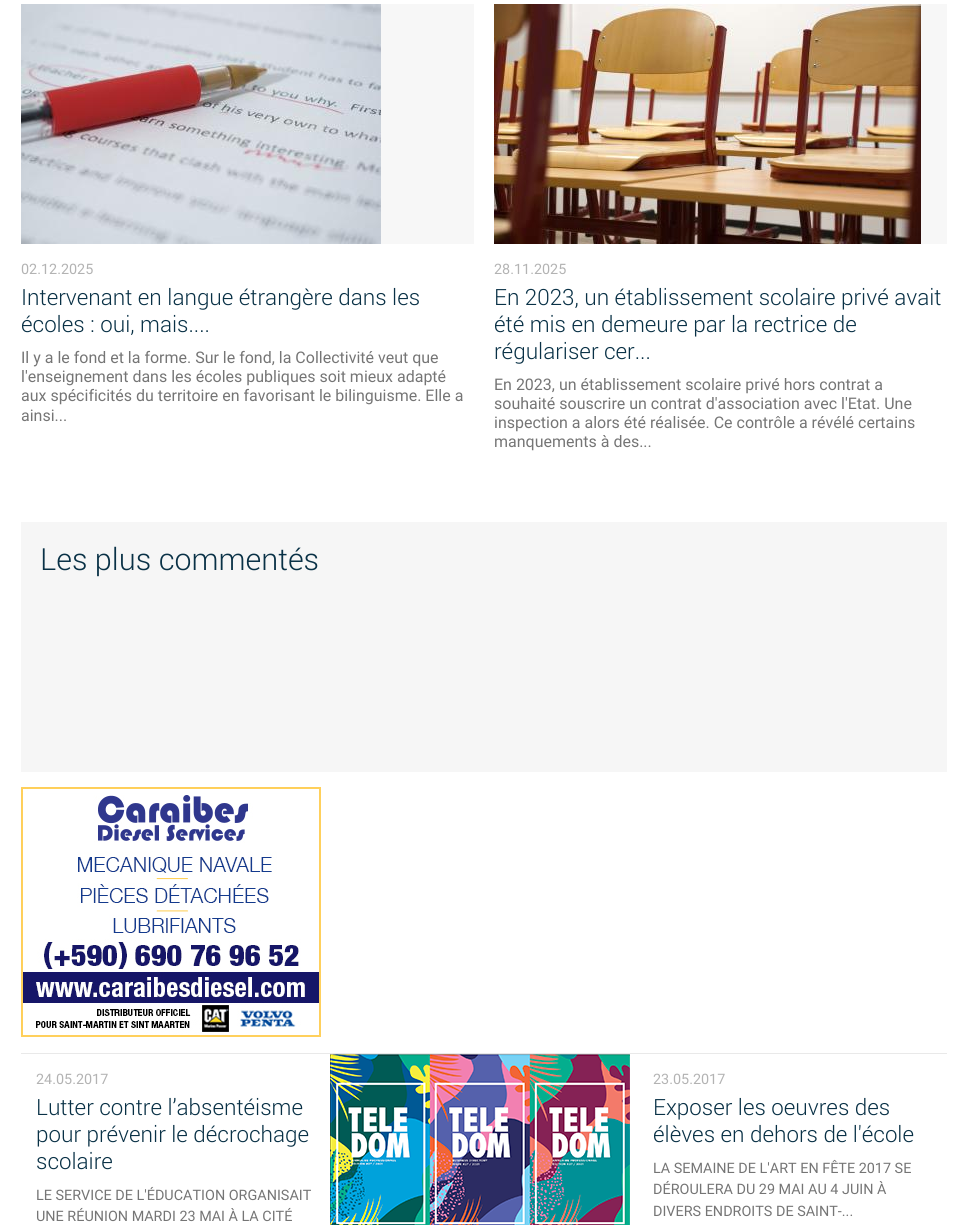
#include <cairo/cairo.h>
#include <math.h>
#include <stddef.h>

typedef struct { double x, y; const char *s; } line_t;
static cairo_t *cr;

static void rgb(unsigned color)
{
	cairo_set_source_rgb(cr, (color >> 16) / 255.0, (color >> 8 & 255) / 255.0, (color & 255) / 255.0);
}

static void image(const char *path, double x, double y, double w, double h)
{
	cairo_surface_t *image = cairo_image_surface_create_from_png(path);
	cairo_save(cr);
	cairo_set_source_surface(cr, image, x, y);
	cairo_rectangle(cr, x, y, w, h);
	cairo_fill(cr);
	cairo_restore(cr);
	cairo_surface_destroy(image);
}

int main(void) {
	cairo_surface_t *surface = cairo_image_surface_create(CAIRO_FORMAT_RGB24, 968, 1225);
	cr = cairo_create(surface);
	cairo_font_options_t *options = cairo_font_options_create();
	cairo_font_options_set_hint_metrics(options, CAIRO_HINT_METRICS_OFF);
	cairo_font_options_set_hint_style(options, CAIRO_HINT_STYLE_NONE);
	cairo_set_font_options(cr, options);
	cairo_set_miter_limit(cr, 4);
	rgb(0xffffff);
	cairo_paint(cr);
	rgb(0xf7f7f7);
	cairo_rectangle(cr, 381, 4, 93, 240);
	cairo_fill(cr);
	image("img/1.png", 21, 4, 360, 240);
	cairo_rectangle(cr, 921, 4, 26, 240);
	cairo_fill(cr);
	image("img/2.png", 494, 4, 427, 240);
	rgb(0xf6f6f6);
	cairo_rectangle(cr, 21, 522, 926, 250);
	cairo_fill(cr);
	image("img/3.png", 21, 787, 300, 250);
	rgb(0xe9e9e9);
	cairo_rectangle(cr, 21, 1053, 926, 1);
	cairo_fill(cr);
	image("img/4.png", 330, 1054, 300, 171);
	cairo_select_font_face(cr, "Roboto", CAIRO_FONT_SLANT_NORMAL, CAIRO_FONT_WEIGHT_NORMAL);
	cairo_set_font_size(cr, 14.4);
	rgb(0xb3b3b3);
	cairo_move_to(cr, 21, 274);
	cairo_show_text(cr, "02.12.2025");
	cairo_select_font_face(cr, "Roboto Light", CAIRO_FONT_SLANT_NORMAL, CAIRO_FONT_WEIGHT_NORMAL);
	cairo_set_font_size(cr, 22.4);
	rgb(0x093146);
	cairo_move_to(cr, 21, 305);
	cairo_show_text(cr, "Intervenant en langue étrangère dans les");
	cairo_move_to(cr, 21, 332);
	cairo_show_text(cr, "écoles : oui, mais....");
	cairo_select_font_face(cr, "Roboto", CAIRO_FONT_SLANT_NORMAL, CAIRO_FONT_WEIGHT_NORMAL);
	cairo_set_font_size(cr, 16);
	rgb(0x757575);
	{
		static const line_t items[] = {
			{21, 363, "Il y a le fond et la forme. Sur le fond, la Collectivité veut que"},
			{21, 382, "l'enseignement dans les écoles publiques soit mieux adapté"},
			{21, 401, "aux spécificités du territoire en favorisant le bilinguisme. Elle a"},
			{21, 421, "ainsi..."},
		};
		for (size_t i = 0; i < sizeof items / sizeof *items; i++) {
			cairo_move_to(cr, items[i].x, items[i].y);
			cairo_show_text(cr, items[i].s);
		}
	}
	cairo_set_font_size(cr, 14.4);
	rgb(0xb3b3b3);
	cairo_move_to(cr, 494, 274);
	cairo_show_text(cr, "28.11.2025");
	cairo_select_font_face(cr, "Roboto Light", CAIRO_FONT_SLANT_NORMAL, CAIRO_FONT_WEIGHT_NORMAL);
	cairo_set_font_size(cr, 22.4);
	rgb(0x093146);
	{
		static const line_t items[] = {
			{494, 305, "En 2023, un établissement scolaire privé avait"},
			{494, 332, "été mis en demeure par la rectrice de"},
			{494, 359, "régulariser cer..."},
		};
		for (size_t i = 0; i < sizeof items / sizeof *items; i++) {
			cairo_move_to(cr, items[i].x, items[i].y);
			cairo_show_text(cr, items[i].s);
		}
	}
	cairo_select_font_face(cr, "Roboto", CAIRO_FONT_SLANT_NORMAL, CAIRO_FONT_WEIGHT_NORMAL);
	cairo_set_font_size(cr, 16);
	rgb(0x757575);
	{
		static const line_t items[] = {
			{494, 390, "En 2023, un établissement scolaire privé hors contrat a"},
			{494, 409, "souhaité souscrire un contrat d'association avec l'Etat. Une"},
			{494, 428, "inspection a alors été réalisée. Ce contrôle a révélé certains"},
			{494, 447, "manquements à des..."},
		};
		for (size_t i = 0; i < sizeof items / sizeof *items; i++) {
			cairo_move_to(cr, items[i].x, items[i].y);
			cairo_show_text(cr, items[i].s);
		}
	}
	cairo_select_font_face(cr, "Roboto Light", CAIRO_FONT_SLANT_NORMAL, CAIRO_FONT_WEIGHT_NORMAL);
	cairo_set_font_size(cr, 30.5);
	rgb(0x093146);
	cairo_move_to(cr, 40, 570);
	cairo_show_text(cr, "Les plus commentés");
	cairo_select_font_face(cr, "Roboto", CAIRO_FONT_SLANT_NORMAL, CAIRO_FONT_WEIGHT_NORMAL);
	cairo_set_font_size(cr, 14.4);
	rgb(0xb3b3b3);
	cairo_move_to(cr, 36, 1084);
	cairo_show_text(cr, "24.05.2017");
	cairo_select_font_face(cr, "Roboto Light", CAIRO_FONT_SLANT_NORMAL, CAIRO_FONT_WEIGHT_NORMAL);
	cairo_set_font_size(cr, 22.4);
	rgb(0x093146);
	{
		static const line_t items[] = {
			{36, 1115, "Lutter contre l’absentéisme"},
			{36, 1142, "pour prévenir le décrochage"},
			{36, 1169, "scolaire"},
		};
		for (size_t i = 0; i < sizeof items / sizeof *items; i++) {
			cairo_move_to(cr, items[i].x, items[i].y);
			cairo_show_text(cr, items[i].s);
		}
	}
	cairo_select_font_face(cr, "Roboto", CAIRO_FONT_SLANT_NORMAL, CAIRO_FONT_WEIGHT_NORMAL);
	cairo_set_font_size(cr, 14.4);
	rgb(0x757575);
	cairo_move_to(cr, 36, 1200);
	cairo_show_text(cr, "LE SERVICE DE L'ÉDUCATION ORGANISAIT");
	cairo_move_to(cr, 36, 1221);
	cairo_show_text(cr, "UNE RÉUNION MARDI 23 MAI À LA CITÉ");
	rgb(0xb3b3b3);
	cairo_move_to(cr, 653, 1084);
	cairo_show_text(cr, "23.05.2017");
	cairo_select_font_face(cr, "Roboto Light", CAIRO_FONT_SLANT_NORMAL, CAIRO_FONT_WEIGHT_NORMAL);
	cairo_set_font_size(cr, 22.4);
	rgb(0x093146);
	cairo_move_to(cr, 653, 1115);
	cairo_show_text(cr, "Exposer les oeuvres des");
	cairo_move_to(cr, 653, 1142);
	cairo_show_text(cr, "élèves en dehors de l'école");
	cairo_select_font_face(cr, "Roboto", CAIRO_FONT_SLANT_NORMAL, CAIRO_FONT_WEIGHT_NORMAL);
	cairo_set_font_size(cr, 14.4);
	rgb(0x757575);
	{
		static const line_t items[] = {
			{653, 1173, "LA SEMAINE DE L'ART EN FÊTE 2017 SE"},
			{653, 1194, "DÉROULERA DU 29 MAI AU 4 JUIN À"},
			{653, 1216, "DIVERS ENDROITS DE SAINT-..."},
		};
		for (size_t i = 0; i < sizeof items / sizeof *items; i++) {
			cairo_move_to(cr, items[i].x, items[i].y);
			cairo_show_text(cr, items[i].s);
		}
	}
	cairo_surface_write_to_png(surface, "page.png");
	cairo_font_options_destroy(options);
	cairo_destroy(cr);
	cairo_surface_destroy(surface);
	return 0;
}
